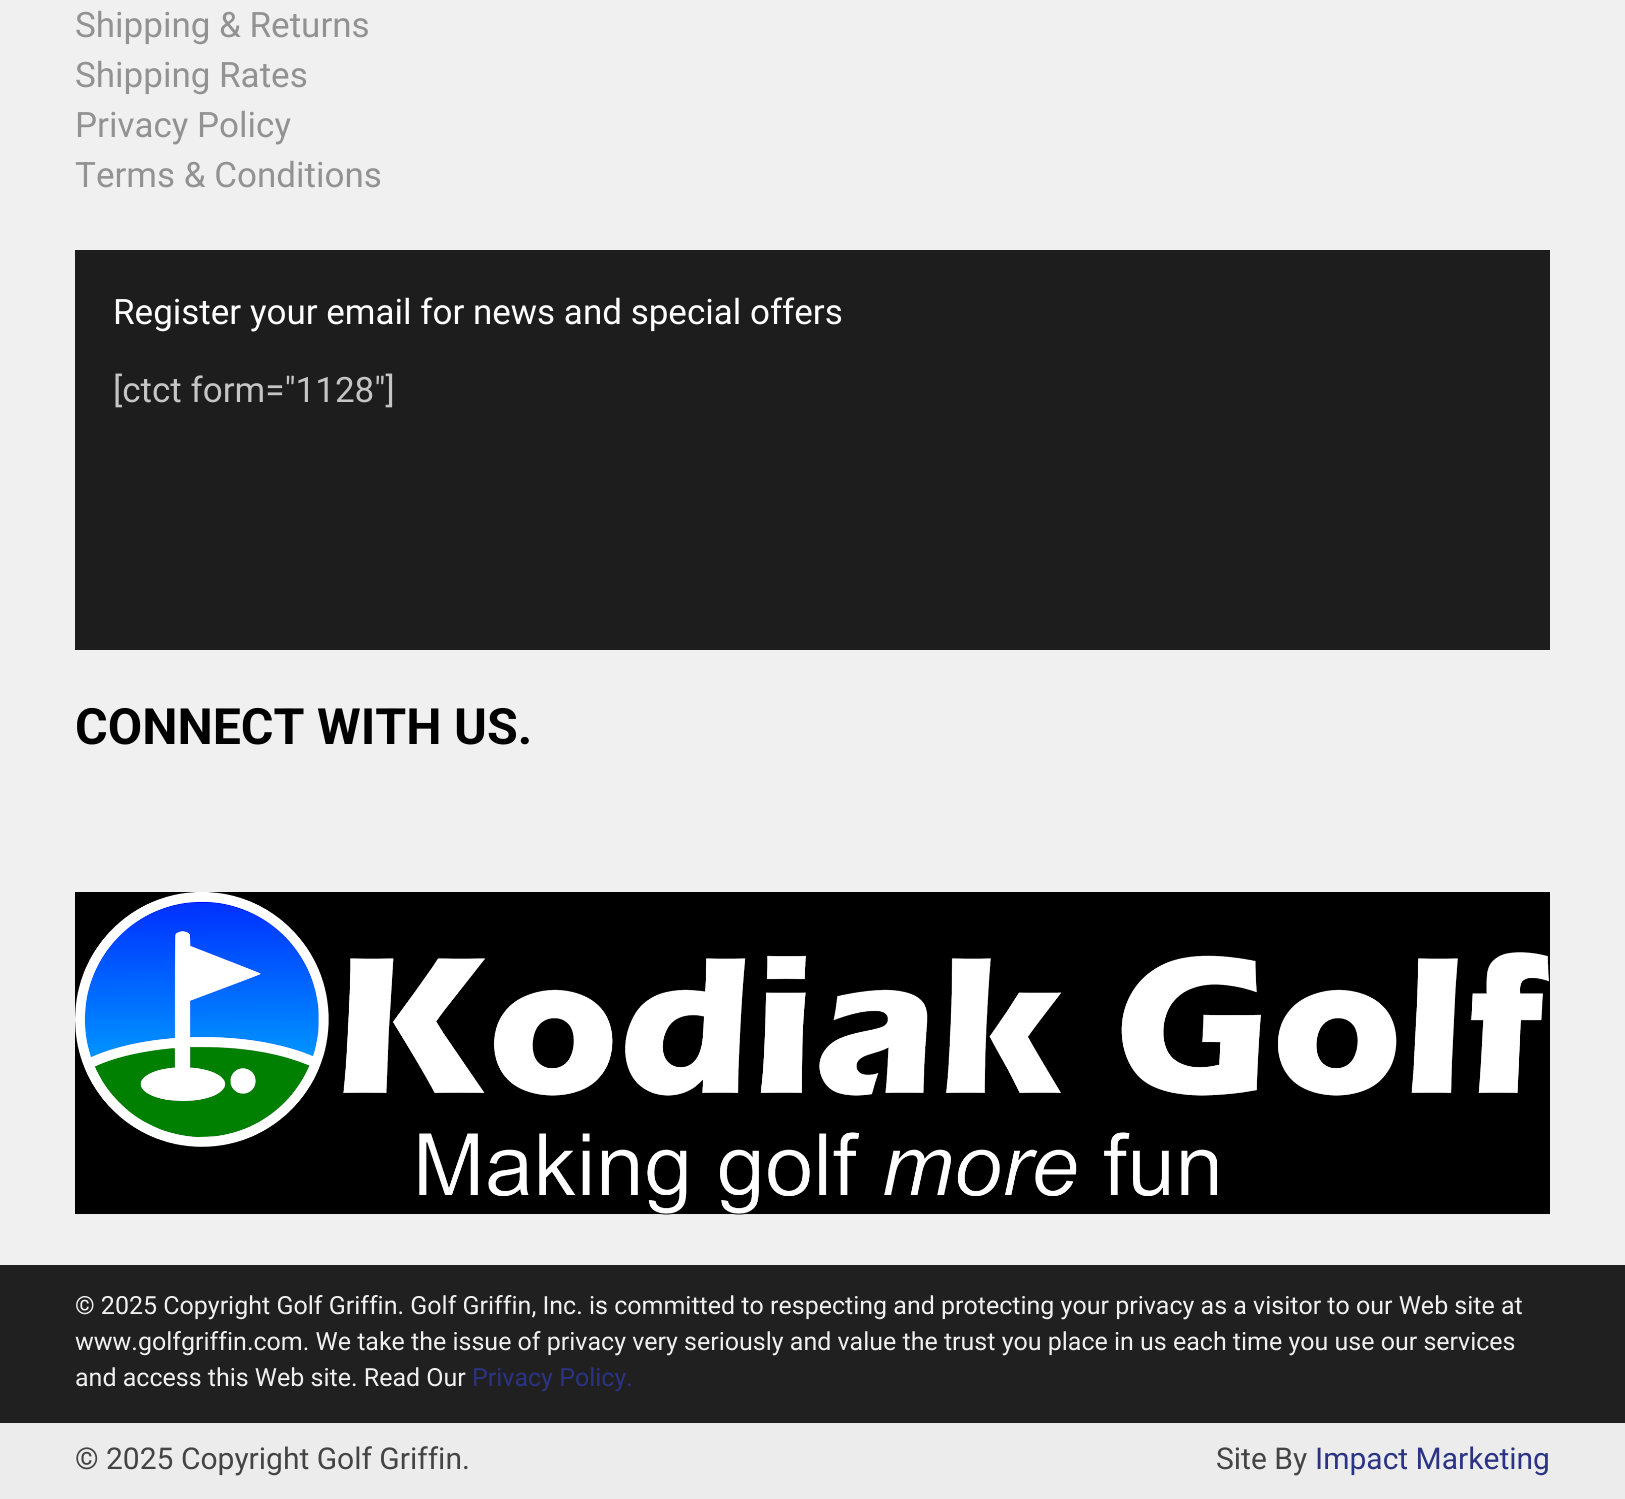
#include <cairo/cairo.h>
#include <math.h>
#include <stddef.h>

typedef struct { double x, y; const char *s; } line_t;
static cairo_t *cr;

static void rgb(unsigned color)
{
	cairo_set_source_rgb(cr, (color >> 16) / 255.0, (color >> 8 & 255) / 255.0, (color & 255) / 255.0);
}

static void image(const char *path, double x, double y, double w, double h)
{
	cairo_surface_t *image = cairo_image_surface_create_from_png(path);
	cairo_save(cr);
	cairo_set_source_surface(cr, image, x, y);
	cairo_rectangle(cr, x, y, w, h);
	cairo_fill(cr);
	cairo_restore(cr);
	cairo_surface_destroy(image);
}

int main(void) {
	cairo_surface_t *surface = cairo_image_surface_create(CAIRO_FORMAT_RGB24, 1625, 1499);
	cr = cairo_create(surface);
	cairo_font_options_t *options = cairo_font_options_create();
	cairo_font_options_set_hint_metrics(options, CAIRO_HINT_METRICS_OFF);
	cairo_font_options_set_hint_style(options, CAIRO_HINT_STYLE_NONE);
	cairo_set_font_options(cr, options);
	cairo_set_miter_limit(cr, 4);
	rgb(0xececec);
	cairo_paint(cr);
	rgb(0xf0f0f0);
	cairo_rectangle(cr, 0, 0, 1625, 1265);
	cairo_fill(cr);
	rgb(0x1d1d1d);
	cairo_rectangle(cr, 75, 250, 1475, 400);
	cairo_fill(cr);
	image("img/1.png", 75, 892, 1475, 323);
	rgb(0x202020);
	cairo_rectangle(cr, 0, 1265, 1625, 158);
	cairo_fill(cr);
	cairo_select_font_face(cr, "Roboto", CAIRO_FONT_SLANT_NORMAL, CAIRO_FONT_WEIGHT_NORMAL);
	cairo_set_font_size(cr, 35);
	rgb(0x929292);
	{
		static const line_t items[] = {
			{75, 37, "Shipping & Returns"},
			{75, 87, "Shipping Rates"},
			{75, 137, "Privacy Policy"},
			{75, 187, "Terms & Conditions"},
		};
		for (size_t i = 0; i < sizeof items / sizeof *items; i++) {
			cairo_move_to(cr, items[i].x, items[i].y);
			cairo_show_text(cr, items[i].s);
		}
	}
	rgb(0xffffff);
	cairo_move_to(cr, 113, 324);
	cairo_show_text(cr, "Register your email for news and special offers");
	rgb(0xc5c5c5);
	cairo_move_to(cr, 113, 402);
	cairo_show_text(cr, "[ctct form=\"1128\"]");
	cairo_select_font_face(cr, "Roboto", CAIRO_FONT_SLANT_NORMAL, CAIRO_FONT_WEIGHT_BOLD);
	cairo_set_font_size(cr, 50);
	rgb(0x000000);
	cairo_move_to(cr, 75, 744);
	cairo_show_text(cr, "CONNECT WITH US.");
	cairo_select_font_face(cr, "Roboto", CAIRO_FONT_SLANT_NORMAL, CAIRO_FONT_WEIGHT_NORMAL);
	cairo_set_font_size(cr, 25);
	rgb(0xf0f0f0);
	{
		static const line_t items[] = {
			{75, 1314, "© 2025 Copyright Golf Griffin. Golf Griffin, Inc. is committed to respecting and protecting your privacy as a visitor to our Web site at"},
			{75, 1350, "www.golfgriffin.com. We take the issue of privacy very seriously and value the trust you place in us each time you use our services"},
			{75, 1386, "and access this Web site. Read Our"},
		};
		for (size_t i = 0; i < sizeof items / sizeof *items; i++) {
			cairo_move_to(cr, items[i].x, items[i].y);
			cairo_show_text(cr, items[i].s);
		}
	}
	rgb(0x2b3384);
	cairo_move_to(cr, 472, 1386);
	cairo_show_text(cr, "Privacy Policy.");
	cairo_set_font_size(cr, 30);
	rgb(0x444444);
	cairo_move_to(cr, 75, 1469);
	cairo_show_text(cr, "© 2025 Copyright Golf Griffin.");
	cairo_move_to(cr, 1216, 1469);
	cairo_show_text(cr, "Site By");
	rgb(0x2b3384);
	cairo_move_to(cr, 1315, 1469);
	cairo_show_text(cr, "Impact Marketing");
	cairo_surface_write_to_png(surface, "page.png");
	cairo_font_options_destroy(options);
	cairo_destroy(cr);
	cairo_surface_destroy(surface);
	return 0;
}
